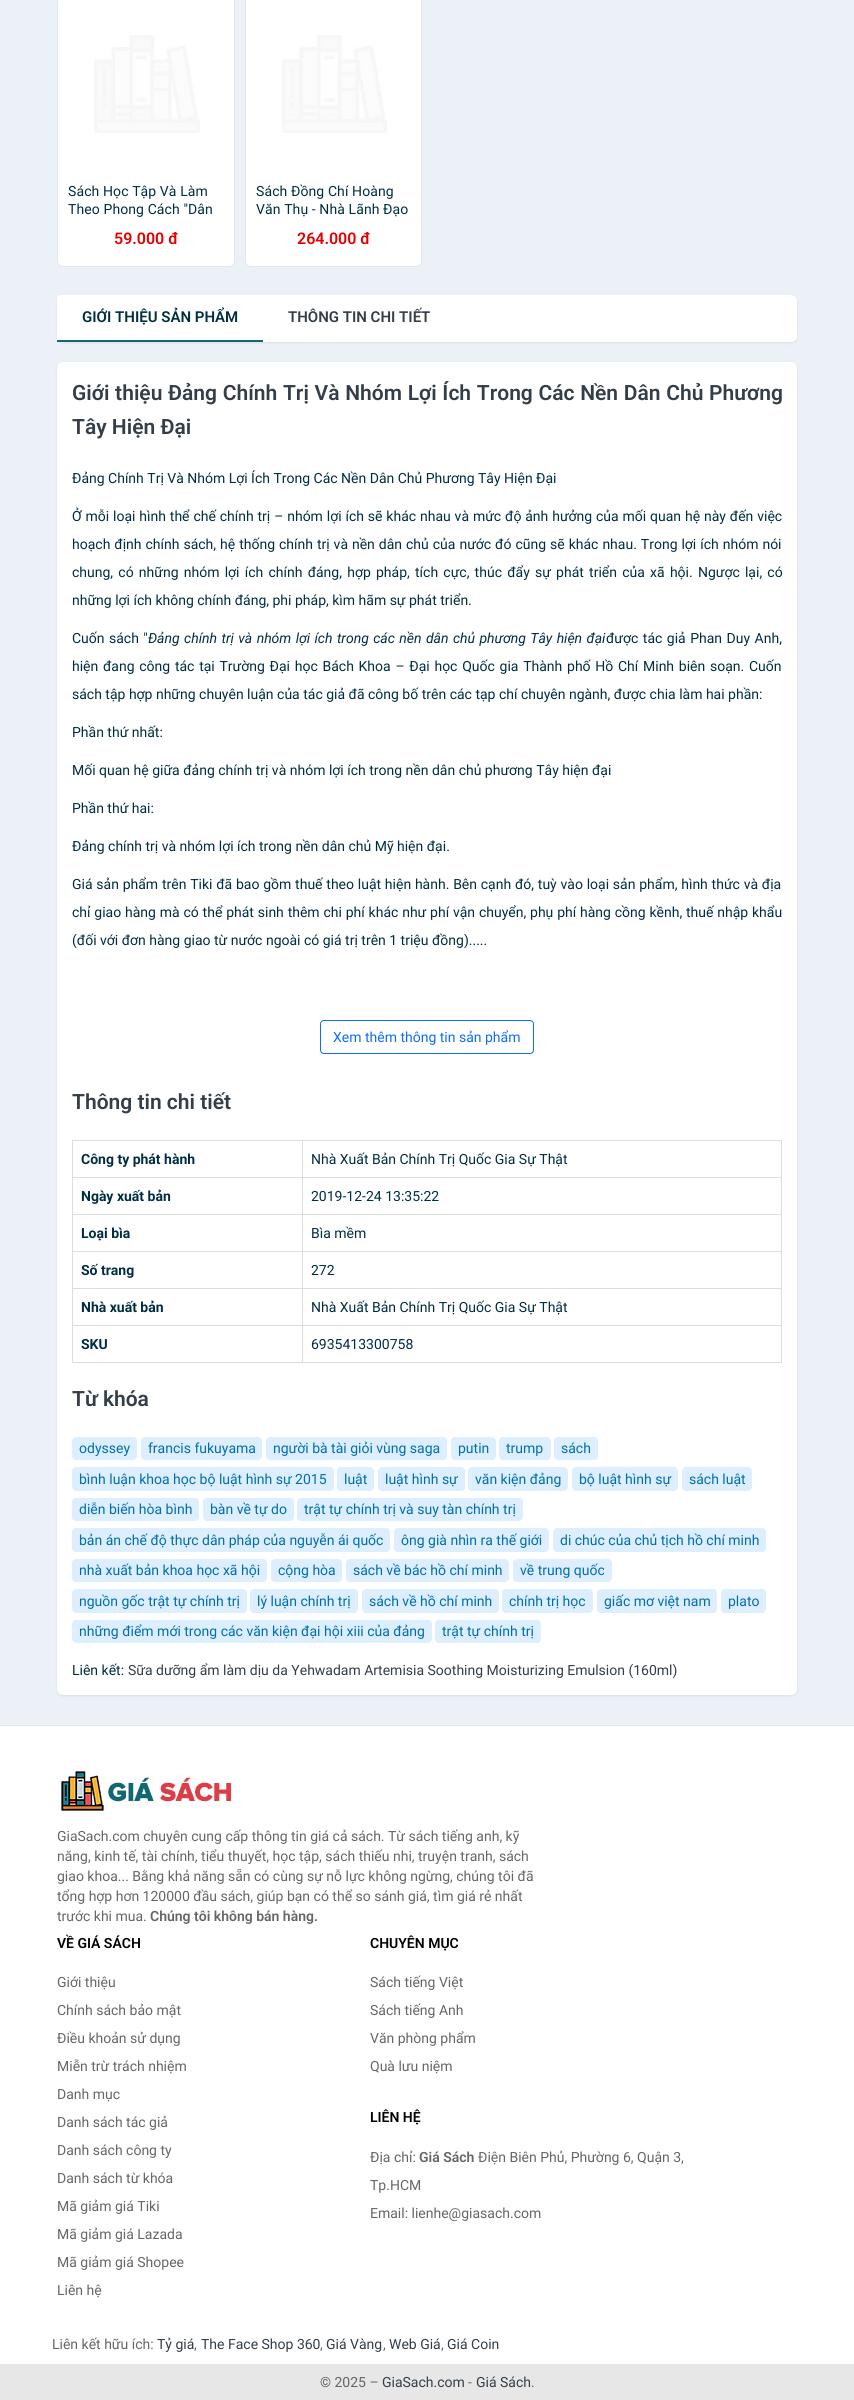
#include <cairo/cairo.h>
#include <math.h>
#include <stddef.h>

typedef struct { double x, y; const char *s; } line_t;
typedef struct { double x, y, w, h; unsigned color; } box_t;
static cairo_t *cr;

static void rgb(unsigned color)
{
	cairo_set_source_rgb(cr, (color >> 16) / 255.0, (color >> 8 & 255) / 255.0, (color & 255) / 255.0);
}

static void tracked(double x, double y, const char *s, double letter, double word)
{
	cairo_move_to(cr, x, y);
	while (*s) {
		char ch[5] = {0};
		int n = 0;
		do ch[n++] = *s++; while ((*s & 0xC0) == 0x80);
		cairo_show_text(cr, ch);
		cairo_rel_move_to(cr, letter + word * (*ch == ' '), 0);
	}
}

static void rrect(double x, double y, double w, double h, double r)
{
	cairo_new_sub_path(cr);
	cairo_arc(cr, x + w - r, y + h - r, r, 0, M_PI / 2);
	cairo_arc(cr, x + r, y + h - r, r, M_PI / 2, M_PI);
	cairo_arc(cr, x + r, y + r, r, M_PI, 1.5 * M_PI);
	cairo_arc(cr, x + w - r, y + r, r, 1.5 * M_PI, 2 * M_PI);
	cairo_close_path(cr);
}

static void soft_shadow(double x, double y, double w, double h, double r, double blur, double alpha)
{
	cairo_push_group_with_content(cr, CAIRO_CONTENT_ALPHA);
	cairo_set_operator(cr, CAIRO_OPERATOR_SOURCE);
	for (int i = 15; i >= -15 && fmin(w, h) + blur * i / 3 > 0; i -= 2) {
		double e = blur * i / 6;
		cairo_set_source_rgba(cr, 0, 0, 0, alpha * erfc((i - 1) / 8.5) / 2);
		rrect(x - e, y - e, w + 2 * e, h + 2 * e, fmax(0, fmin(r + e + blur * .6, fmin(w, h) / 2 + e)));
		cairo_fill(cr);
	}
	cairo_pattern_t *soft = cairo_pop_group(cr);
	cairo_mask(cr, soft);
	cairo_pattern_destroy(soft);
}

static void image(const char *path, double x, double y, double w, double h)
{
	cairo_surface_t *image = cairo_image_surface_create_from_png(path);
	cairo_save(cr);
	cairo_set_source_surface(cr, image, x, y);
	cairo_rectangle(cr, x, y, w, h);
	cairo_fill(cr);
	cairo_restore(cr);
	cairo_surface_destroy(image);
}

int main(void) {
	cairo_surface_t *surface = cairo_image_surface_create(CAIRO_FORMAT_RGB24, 854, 2400);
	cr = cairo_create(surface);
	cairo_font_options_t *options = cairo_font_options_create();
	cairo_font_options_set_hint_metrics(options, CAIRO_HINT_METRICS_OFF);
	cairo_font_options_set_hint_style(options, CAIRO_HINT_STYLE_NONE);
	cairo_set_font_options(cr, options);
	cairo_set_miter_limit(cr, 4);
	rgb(0xffffff);
	cairo_paint(cr);
	rgb(0xecf1f7);
	cairo_rectangle(cr, 0, 0, 854, 1725);
	cairo_fill(cr);
	rgb(0xffffff);
	rrect(57.5, -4.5, 177, 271, 5.5);
	cairo_fill_preserve(cr);
	rgb(0xdfe7ef);
	cairo_set_line_width(cr, 1);
	cairo_stroke(cr);
	image("img/1.png", 94, 35, 106, 98);
	rgb(0xffffff);
	rrect(245.5, -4.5, 176, 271, 5.5);
	cairo_fill_preserve(cr);
	rgb(0xdfe7ef);
	cairo_stroke(cr);
	image("img/2.png", 282, 35, 105, 98);
	rgb(0x000000);
	soft_shadow(57, 296, 740, 47, 6, 1.5, 0.08);
	rgb(0xffffff);
	rrect(57, 295, 740, 47, 6);
	cairo_fill(cr);
	cairo_new_path(cr);
	cairo_move_to(cr, 61, 295);
	cairo_line_to(cr, 263, 295);
	cairo_line_to(cr, 263, 342);
	cairo_line_to(cr, 57, 342);
	cairo_line_to(cr, 57, 299);
	cairo_curve_to(cr, 57, 297, 59, 295, 61, 295);
	cairo_close_path(cr);
	cairo_fill(cr);
	rgb(0x126872);
	cairo_rectangle(cr, 57, 340, 206, 2);
	cairo_fill(cr);
	rgb(0x000000);
	soft_shadow(57, 363, 740, 1333, 6, 1.5, 0.08);
	rgb(0xffffff);
	rrect(57, 362, 740, 1333, 6);
	cairo_fill(cr);
	rrect(320.5, 1020.5, 213, 33, 3.5);
	rgb(0x0d6efd);
	cairo_stroke(cr);
	{
		static const box_t items[] = {
			{72, 1140, 710, 1, 0xdddddd},
			{781, 1140, 1, 223, 0xdddddd},
			{72, 1362, 710, 1, 0xdddddd},
			{72, 1140, 1, 223, 0xdddddd},
			{302, 1177, 480, 1, 0xdddddd},
			{302, 1214, 480, 1, 0xdddddd},
			{302, 1251, 480, 1, 0xdddddd},
			{302, 1288, 480, 1, 0xdddddd},
			{302, 1325, 480, 1, 0xdddddd},
			{302, 1325, 1, 38, 0xdddddd},
			{72, 1325, 231, 1, 0xdddddd},
			{302, 1288, 1, 38, 0xdddddd},
			{72, 1288, 231, 1, 0xdddddd},
			{302, 1251, 1, 38, 0xdddddd},
			{72, 1251, 231, 1, 0xdddddd},
			{302, 1214, 1, 38, 0xdddddd},
			{72, 1214, 231, 1, 0xdddddd},
			{302, 1177, 1, 38, 0xdddddd},
			{72, 1177, 231, 1, 0xdddddd},
			{302, 1140, 1, 38, 0xdddddd},
		};
		for (size_t i = 0; i < sizeof items / sizeof *items; i++) {
			rgb(items[i].color);
			cairo_rectangle(cr, items[i].x, items[i].y, items[i].w, items[i].h);
			cairo_fill(cr);
		}
	}
	rgb(0xddeeff);
	rrect(72, 1437, 65, 23, 4);
	cairo_fill(cr);
	rrect(141, 1437, 121, 23, 4);
	cairo_fill(cr);
	rrect(266, 1437, 181, 23, 4);
	cairo_fill(cr);
	rrect(451, 1437, 45, 23, 4);
	cairo_fill(cr);
	rrect(499, 1437, 52, 23, 4);
	cairo_fill(cr);
	rrect(554, 1437, 44, 23, 4);
	cairo_fill(cr);
	rrect(72, 1467, 262, 24, 4);
	cairo_fill(cr);
	rrect(337, 1467, 37, 24, 4);
	cairo_fill(cr);
	rrect(378, 1467, 87, 24, 4);
	cairo_fill(cr);
	rrect(468, 1467, 100, 24, 4);
	cairo_fill(cr);
	rrect(572, 1467, 106, 24, 4);
	cairo_fill(cr);
	rrect(682, 1467, 70, 24, 4);
	cairo_fill(cr);
	rrect(72, 1498, 127, 23, 4);
	cairo_fill(cr);
	rrect(203, 1498, 91, 23, 4);
	cairo_fill(cr);
	rrect(297, 1498, 226, 23, 4);
	cairo_fill(cr);
	rrect(72, 1528, 318, 24, 4);
	cairo_fill(cr);
	rrect(394, 1528, 155, 24, 4);
	cairo_fill(cr);
	rrect(553, 1528, 213, 24, 4);
	cairo_fill(cr);
	rrect(72, 1559, 195, 23, 4);
	cairo_fill(cr);
	rrect(271, 1559, 71, 23, 4);
	cairo_fill(cr);
	rrect(346, 1559, 163, 23, 4);
	cairo_fill(cr);
	rrect(513, 1559, 99, 23, 4);
	cairo_fill(cr);
	rrect(72, 1589, 175, 24, 4);
	cairo_fill(cr);
	rrect(250, 1589, 108, 24, 4);
	cairo_fill(cr);
	rrect(362, 1589, 137, 24, 4);
	cairo_fill(cr);
	rrect(502, 1589, 91, 24, 4);
	cairo_fill(cr);
	rrect(597, 1589, 120, 24, 4);
	cairo_fill(cr);
	rrect(721, 1589, 45, 24, 4);
	cairo_fill(cr);
	rrect(72, 1620, 360, 23, 4);
	cairo_fill(cr);
	rrect(435, 1620, 106, 23, 4);
	cairo_fill(cr);
	rgb(0xdfe7ef);
	cairo_rectangle(cr, 0, 1725, 854, 1);
	cairo_fill(cr);
	image("img/3.png", 57, 1766, 176, 48);
	rgb(0xe7e7e7);
	cairo_rectangle(cr, 0, 2364, 854, 36);
	cairo_fill(cr);
	cairo_select_font_face(cr, "Roboto", CAIRO_FONT_SLANT_NORMAL, CAIRO_FONT_WEIGHT_NORMAL);
	cairo_set_font_size(cr, 14);
	rgb(0x012d41);
	tracked(68, 196, "Sách Học Tập Và Làm", 0.1, 0);
	tracked(68, 214, "Theo Phong Cách \"Dân", 0.1, 0);
	cairo_select_font_face(cr, "Roboto SemiBold", CAIRO_FONT_SLANT_NORMAL, CAIRO_FONT_WEIGHT_NORMAL);
	cairo_set_font_size(cr, 16);
	rgb(0xe60000);
	cairo_move_to(cr, 114, 244);
	cairo_show_text(cr, "59.000 đ");
	cairo_select_font_face(cr, "Roboto", CAIRO_FONT_SLANT_NORMAL, CAIRO_FONT_WEIGHT_NORMAL);
	cairo_set_font_size(cr, 14);
	rgb(0x012d41);
	tracked(256, 196, "Sách Đồng Chí Hoàng", 0.1, 0);
	tracked(256, 214, "Văn Thụ - Nhà Lãnh Đạo", 0.1, 0);
	cairo_select_font_face(cr, "Roboto SemiBold", CAIRO_FONT_SLANT_NORMAL, CAIRO_FONT_WEIGHT_NORMAL);
	cairo_set_font_size(cr, 16);
	rgb(0xe60000);
	cairo_move_to(cr, 297, 244);
	cairo_show_text(cr, "264.000 đ");
	cairo_set_font_size(cr, 15);
	rgb(0x012d41);
	cairo_move_to(cr, 82, 322);
	cairo_show_text(cr, "GIỚI THIỆU SẢN PHẨM");
	rgb(0x333e48);
	cairo_move_to(cr, 288, 322);
	cairo_show_text(cr, "THÔNG TIN CHI TIẾT");
	cairo_set_font_size(cr, 21);
	tracked(72, 400, "Giới thiệu Đảng Chính Trị Và Nhóm Lợi Ích Trong Các Nền Dân Chủ Phương", 0, 0.5);
	cairo_move_to(cr, 72, 434);
	cairo_show_text(cr, "Tây Hiện Đại");
	cairo_select_font_face(cr, "Roboto", CAIRO_FONT_SLANT_NORMAL, CAIRO_FONT_WEIGHT_NORMAL);
	cairo_set_font_size(cr, 14);
	rgb(0x012d41);
	cairo_move_to(cr, 72, 483);
	cairo_show_text(cr, "Đảng Chính Trị Và Nhóm Lợi Ích Trong Các Nền Dân Chủ Phương Tây Hiện Đại");
	tracked(72, 521, "Ở mỗi loại hình thể chế chính trị – nhóm lợi ích sẽ khác nhau và mức độ ảnh hưởng của mối quan hệ này đến việc", 0, 0.4);
	tracked(72, 549, "hoạch định chính sách, hệ thống chính trị và nền dân chủ của nước đó cũng sẽ khác nhau. Trong lợi ích nhóm nói", 0, 0.5);
	tracked(72, 577, "chung, có những nhóm lợi ích chính đáng, hợp pháp, tích cực, thúc đẩy sự phát triển của xã hội. Ngược lại, có", 0, 1.75);
	cairo_move_to(cr, 72, 605);
	cairo_show_text(cr, "những lợi ích không chính đáng, phi pháp, kìm hãm sự phát triển.");
	tracked(72, 643, "Cuốn sách \"", 0, 1);
	cairo_select_font_face(cr, "Roboto", CAIRO_FONT_SLANT_ITALIC, CAIRO_FONT_WEIGHT_NORMAL);
	tracked(148, 643, "Đảng chính trị và nhóm lợi ích trong các nền dân chủ phương Tây hiện đại", 0, 1);
	cairo_select_font_face(cr, "Roboto", CAIRO_FONT_SLANT_NORMAL, CAIRO_FONT_WEIGHT_NORMAL);
	tracked(606, 643, "được tác giả Phan Duy Anh,", 0, 1);
	tracked(72, 671, "hiện đang công tác tại Trường Đại học Bách Khoa – Đại học Quốc gia Thành phố Hồ Chí Minh biên soạn. Cuốn", 0, 1.25);
	{
		static const line_t items[] = {
			{72, 699, "sách tập hợp những chuyên luận của tác giả đã công bố trên các tạp chí chuyên ngành, được chia làm hai phần:"},
			{72, 737, "Phần thứ nhất:"},
			{72, 775, "Mối quan hệ giữa đảng chính trị và nhóm lợi ích trong nền dân chủ phương Tây hiện đại"},
			{72, 813, "Phần thứ hai:"},
			{72, 851, "Đảng chính trị và nhóm lợi ích trong nền dân chủ Mỹ hiện đại."},
		};
		for (size_t i = 0; i < sizeof items / sizeof *items; i++) {
			cairo_move_to(cr, items[i].x, items[i].y);
			cairo_show_text(cr, items[i].s);
		}
	}
	tracked(72, 889, "Giá sản phẩm trên Tiki đã bao gồm thuế theo luật hiện hành. Bên cạnh đó, tuỳ vào loại sản phẩm, hình thức và địa", 0, 0.3);
	tracked(72, 917, "chỉ giao hàng mà có thể phát sinh thêm chi phí khác như phí vận chuyển, phụ phí hàng cồng kềnh, thuế nhập khẩu", 0, 0.35);
	cairo_move_to(cr, 72, 945);
	cairo_show_text(cr, "(đối với đơn hàng giao từ nước ngoài có giá trị trên 1 triệu đồng).....");
	rgb(0x0d6efd);
	cairo_move_to(cr, 333, 1042);
	cairo_show_text(cr, "Xem thêm thông tin sản phẩm");
	cairo_select_font_face(cr, "Roboto SemiBold", CAIRO_FONT_SLANT_NORMAL, CAIRO_FONT_WEIGHT_NORMAL);
	cairo_set_font_size(cr, 21);
	rgb(0x333e48);
	cairo_move_to(cr, 72, 1109);
	cairo_show_text(cr, "Thông tin chi tiết");
	cairo_select_font_face(cr, "Roboto", CAIRO_FONT_SLANT_NORMAL, CAIRO_FONT_WEIGHT_BOLD);
	cairo_set_font_size(cr, 14);
	rgb(0x012d41);
	cairo_move_to(cr, 81, 1164);
	cairo_show_text(cr, "Công ty phát hành");
	cairo_select_font_face(cr, "Roboto", CAIRO_FONT_SLANT_NORMAL, CAIRO_FONT_WEIGHT_NORMAL);
	cairo_move_to(cr, 311, 1164);
	cairo_show_text(cr, "Nhà Xuất Bản Chính Trị Quốc Gia Sự Thật");
	cairo_select_font_face(cr, "Roboto", CAIRO_FONT_SLANT_NORMAL, CAIRO_FONT_WEIGHT_BOLD);
	cairo_move_to(cr, 81, 1201);
	cairo_show_text(cr, "Ngày xuất bản");
	cairo_select_font_face(cr, "Roboto", CAIRO_FONT_SLANT_NORMAL, CAIRO_FONT_WEIGHT_NORMAL);
	cairo_move_to(cr, 311, 1201);
	cairo_show_text(cr, "2019-12-24 13:35:22");
	cairo_select_font_face(cr, "Roboto", CAIRO_FONT_SLANT_NORMAL, CAIRO_FONT_WEIGHT_BOLD);
	cairo_move_to(cr, 81, 1238);
	cairo_show_text(cr, "Loại bìa");
	cairo_select_font_face(cr, "Roboto", CAIRO_FONT_SLANT_NORMAL, CAIRO_FONT_WEIGHT_NORMAL);
	cairo_move_to(cr, 311, 1238);
	cairo_show_text(cr, "Bìa mềm");
	cairo_select_font_face(cr, "Roboto", CAIRO_FONT_SLANT_NORMAL, CAIRO_FONT_WEIGHT_BOLD);
	cairo_move_to(cr, 81, 1275);
	cairo_show_text(cr, "Số trang");
	cairo_select_font_face(cr, "Roboto", CAIRO_FONT_SLANT_NORMAL, CAIRO_FONT_WEIGHT_NORMAL);
	cairo_move_to(cr, 311, 1275);
	cairo_show_text(cr, "272");
	cairo_select_font_face(cr, "Roboto", CAIRO_FONT_SLANT_NORMAL, CAIRO_FONT_WEIGHT_BOLD);
	cairo_move_to(cr, 81, 1312);
	cairo_show_text(cr, "Nhà xuất bản");
	cairo_select_font_face(cr, "Roboto", CAIRO_FONT_SLANT_NORMAL, CAIRO_FONT_WEIGHT_NORMAL);
	cairo_move_to(cr, 311, 1312);
	cairo_show_text(cr, "Nhà Xuất Bản Chính Trị Quốc Gia Sự Thật");
	cairo_select_font_face(cr, "Roboto", CAIRO_FONT_SLANT_NORMAL, CAIRO_FONT_WEIGHT_BOLD);
	cairo_move_to(cr, 81, 1349);
	cairo_show_text(cr, "SKU");
	cairo_select_font_face(cr, "Roboto", CAIRO_FONT_SLANT_NORMAL, CAIRO_FONT_WEIGHT_NORMAL);
	cairo_move_to(cr, 311, 1349);
	cairo_show_text(cr, "6935413300758");
	cairo_select_font_face(cr, "Roboto SemiBold", CAIRO_FONT_SLANT_NORMAL, CAIRO_FONT_WEIGHT_NORMAL);
	cairo_set_font_size(cr, 21);
	rgb(0x333e48);
	cairo_move_to(cr, 72, 1406);
	cairo_show_text(cr, "Từ khóa");
	cairo_select_font_face(cr, "Roboto", CAIRO_FONT_SLANT_NORMAL, CAIRO_FONT_WEIGHT_NORMAL);
	cairo_set_font_size(cr, 14);
	rgb(0x006eab);
	{
		static const line_t items[] = {
			{79, 1453, "odyssey"},
			{148, 1453, "francis fukuyama"},
			{273, 1453, "người bà tài giỏi vùng saga"},
			{458, 1453, "putin"},
			{506, 1453, "trump"},
			{561, 1453, "sách"},
			{79, 1484, "bình luận khoa học bộ luật hình sự 2015"},
			{344, 1484, "luật"},
			{385, 1484, "luật hình sự"},
			{475, 1484, "văn kiện đảng"},
			{579, 1484, "bộ luật hình sự"},
			{689, 1484, "sách luật"},
			{79, 1514, "diễn biến hòa bình"},
			{210, 1514, "bàn về tự do"},
			{304, 1514, "trật tự chính trị và suy tàn chính trị"},
			{79, 1545, "bản án chế độ thực dân pháp của nguyễn ái quốc"},
			{401, 1545, "ông già nhìn ra thế giới"},
			{560, 1545, "di chúc của chủ tịch hồ chí minh"},
			{79, 1575, "nhà xuất bản khoa học xã hội"},
			{278, 1575, "cộng hòa"},
			{353, 1575, "sách về bác hồ chí minh"},
			{520, 1575, "về trung quốc"},
			{79, 1606, "nguồn gốc trật tự chính trị"},
			{257, 1606, "lý luận chính trị"},
			{369, 1606, "sách về hồ chí minh"},
			{509, 1606, "chính trị học"},
			{604, 1606, "giấc mơ việt nam"},
			{728, 1606, "plato"},
			{79, 1636, "những điểm mới trong các văn kiện đại hội xiii của đảng"},
			{442, 1636, "trật tự chính trị"},
		};
		for (size_t i = 0; i < sizeof items / sizeof *items; i++) {
			cairo_move_to(cr, items[i].x, items[i].y);
			cairo_show_text(cr, items[i].s);
		}
	}
	rgb(0x012d41);
	cairo_move_to(cr, 72, 1675);
	cairo_show_text(cr, "Liên kết:");
	rgb(0x333e48);
	cairo_move_to(cr, 128, 1675);
	cairo_show_text(cr, "Sữa dưỡng ẩm làm dịu da Yehwadam Artemisia Soothing Moisturizing Emulsion (160ml)");
	rgb(0x666666);
	{
		static const line_t items[] = {
			{57, 1841, "GiaSach.com chuyên cung cấp thông tin giá cả sách. Từ sách tiếng anh, kỹ"},
			{57, 1861, "năng, kinh tế, tài chính, tiểu thuyết, học tập, sách thiếu nhi, truyện tranh, sách"},
			{57, 1881, "giao khoa... Bằng khả năng sẵn có cùng sự nỗ lực không ngừng, chúng tôi đã"},
			{57, 1901, "tổng hợp hơn 120000 đầu sách, giúp bạn có thể so sánh giá, tìm giá rẻ nhất"},
			{57, 1921, "trước khi mua."},
		};
		for (size_t i = 0; i < sizeof items / sizeof *items; i++) {
			cairo_move_to(cr, items[i].x, items[i].y);
			cairo_show_text(cr, items[i].s);
		}
	}
	cairo_select_font_face(cr, "Roboto SemiBold", CAIRO_FONT_SLANT_NORMAL, CAIRO_FONT_WEIGHT_NORMAL);
	cairo_move_to(cr, 150, 1921);
	cairo_show_text(cr, "Chúng tôi không bán hàng.");
	rgb(0x000000);
	cairo_move_to(cr, 57, 1948);
	cairo_show_text(cr, "VỀ GIÁ SÁCH");
	cairo_select_font_face(cr, "Roboto", CAIRO_FONT_SLANT_NORMAL, CAIRO_FONT_WEIGHT_NORMAL);
	rgb(0x666666);
	{
		static const line_t items[] = {
			{57, 1987, "Giới thiệu"},
			{57, 2015, "Chính sách bảo mật"},
			{57, 2043, "Điều khoản sử dụng"},
			{57, 2071, "Miễn trừ trách nhiệm"},
			{57, 2099, "Danh mục"},
			{57, 2127, "Danh sách tác giả"},
			{57, 2155, "Danh sách công ty"},
			{57, 2183, "Danh sách từ khóa"},
			{57, 2211, "Mã giảm giá Tiki"},
			{57, 2239, "Mã giảm giá Lazada"},
			{57, 2267, "Mã giảm giá Shopee"},
			{57, 2295, "Liên hệ"},
		};
		for (size_t i = 0; i < sizeof items / sizeof *items; i++) {
			cairo_move_to(cr, items[i].x, items[i].y);
			cairo_show_text(cr, items[i].s);
		}
	}
	cairo_select_font_face(cr, "Roboto SemiBold", CAIRO_FONT_SLANT_NORMAL, CAIRO_FONT_WEIGHT_NORMAL);
	rgb(0x000000);
	cairo_move_to(cr, 370, 1948);
	cairo_show_text(cr, "CHUYÊN MỤC");
	cairo_select_font_face(cr, "Roboto", CAIRO_FONT_SLANT_NORMAL, CAIRO_FONT_WEIGHT_NORMAL);
	rgb(0x666666);
	{
		static const line_t items[] = {
			{370, 1987, "Sách tiếng Việt"},
			{370, 2015, "Sách tiếng Anh"},
			{370, 2043, "Văn phòng phẩm"},
			{370, 2071, "Quà lưu niệm"},
		};
		for (size_t i = 0; i < sizeof items / sizeof *items; i++) {
			cairo_move_to(cr, items[i].x, items[i].y);
			cairo_show_text(cr, items[i].s);
		}
	}
	cairo_select_font_face(cr, "Roboto SemiBold", CAIRO_FONT_SLANT_NORMAL, CAIRO_FONT_WEIGHT_NORMAL);
	rgb(0x000000);
	cairo_move_to(cr, 370, 2122);
	cairo_show_text(cr, "LIÊN HỆ");
	cairo_select_font_face(cr, "Roboto", CAIRO_FONT_SLANT_NORMAL, CAIRO_FONT_WEIGHT_NORMAL);
	rgb(0x666666);
	cairo_move_to(cr, 370, 2162);
	cairo_show_text(cr, "Địa chỉ:");
	cairo_select_font_face(cr, "Roboto SemiBold", CAIRO_FONT_SLANT_NORMAL, CAIRO_FONT_WEIGHT_NORMAL);
	cairo_move_to(cr, 419, 2162);
	cairo_show_text(cr, "Giá Sách");
	cairo_select_font_face(cr, "Roboto", CAIRO_FONT_SLANT_NORMAL, CAIRO_FONT_WEIGHT_NORMAL);
	{
		static const line_t items[] = {
			{478, 2162, "Điện Biên Phủ, Phường 6, Quận 3,"},
			{370, 2190, "Tp.HCM"},
			{370, 2218, "Email: lienhe@giasach.com"},
			{52, 2349, "Liên kết hữu ích:"},
		};
		for (size_t i = 0; i < sizeof items / sizeof *items; i++) {
			cairo_move_to(cr, items[i].x, items[i].y);
			cairo_show_text(cr, items[i].s);
		}
	}
	rgb(0x333e48);
	cairo_move_to(cr, 157, 2349);
	cairo_show_text(cr, "Tỷ giá");
	rgb(0x666666);
	cairo_move_to(cr, 194, 2349);
	cairo_show_text(cr, ",");
	rgb(0x333e48);
	cairo_move_to(cr, 201, 2349);
	cairo_show_text(cr, "The Face Shop 360");
	rgb(0x666666);
	cairo_move_to(cr, 320, 2349);
	cairo_show_text(cr, ",");
	rgb(0x333e48);
	cairo_move_to(cr, 326, 2349);
	cairo_show_text(cr, "Giá Vàng");
	rgb(0x666666);
	cairo_move_to(cr, 383, 2349);
	cairo_show_text(cr, ",");
	rgb(0x333e48);
	cairo_move_to(cr, 389, 2349);
	cairo_show_text(cr, "Web Giá");
	rgb(0x666666);
	cairo_move_to(cr, 441, 2349);
	cairo_show_text(cr, ",");
	rgb(0x333e48);
	cairo_move_to(cr, 447, 2349);
	cairo_show_text(cr, "Giá Coin");
	rgb(0x666666);
	cairo_move_to(cr, 320, 2387);
	cairo_show_text(cr, "© 2025 –");
	rgb(0x333e48);
	cairo_move_to(cr, 382, 2387);
	cairo_show_text(cr, "GiaSach.com");
	rgb(0x666666);
	cairo_move_to(cr, 468, 2387);
	cairo_show_text(cr, "-");
	rgb(0x333e48);
	cairo_move_to(cr, 476, 2387);
	cairo_show_text(cr, "Giá Sách");
	rgb(0x666666);
	cairo_move_to(cr, 531, 2387);
	cairo_show_text(cr, ".");
	cairo_surface_write_to_png(surface, "page.png");
	cairo_font_options_destroy(options);
	cairo_destroy(cr);
	cairo_surface_destroy(surface);
	return 0;
}
